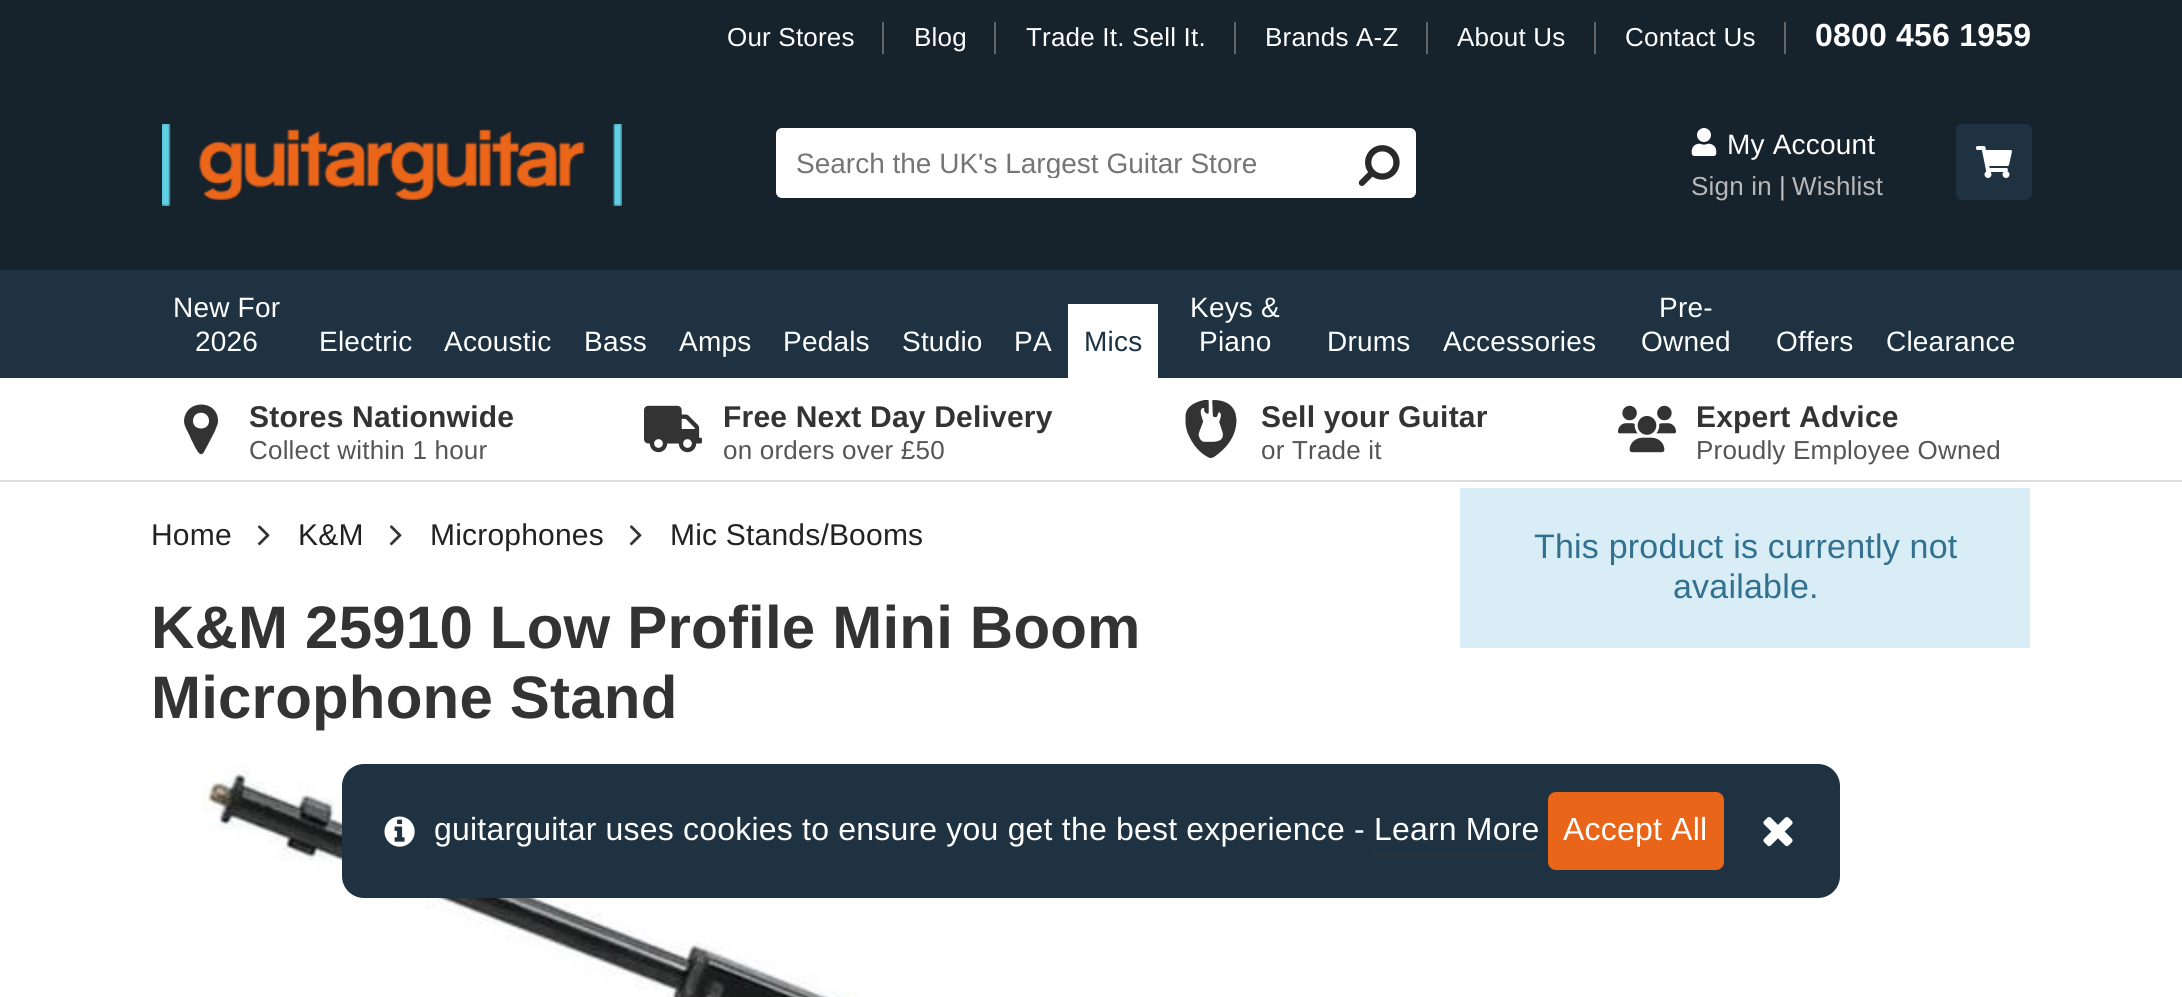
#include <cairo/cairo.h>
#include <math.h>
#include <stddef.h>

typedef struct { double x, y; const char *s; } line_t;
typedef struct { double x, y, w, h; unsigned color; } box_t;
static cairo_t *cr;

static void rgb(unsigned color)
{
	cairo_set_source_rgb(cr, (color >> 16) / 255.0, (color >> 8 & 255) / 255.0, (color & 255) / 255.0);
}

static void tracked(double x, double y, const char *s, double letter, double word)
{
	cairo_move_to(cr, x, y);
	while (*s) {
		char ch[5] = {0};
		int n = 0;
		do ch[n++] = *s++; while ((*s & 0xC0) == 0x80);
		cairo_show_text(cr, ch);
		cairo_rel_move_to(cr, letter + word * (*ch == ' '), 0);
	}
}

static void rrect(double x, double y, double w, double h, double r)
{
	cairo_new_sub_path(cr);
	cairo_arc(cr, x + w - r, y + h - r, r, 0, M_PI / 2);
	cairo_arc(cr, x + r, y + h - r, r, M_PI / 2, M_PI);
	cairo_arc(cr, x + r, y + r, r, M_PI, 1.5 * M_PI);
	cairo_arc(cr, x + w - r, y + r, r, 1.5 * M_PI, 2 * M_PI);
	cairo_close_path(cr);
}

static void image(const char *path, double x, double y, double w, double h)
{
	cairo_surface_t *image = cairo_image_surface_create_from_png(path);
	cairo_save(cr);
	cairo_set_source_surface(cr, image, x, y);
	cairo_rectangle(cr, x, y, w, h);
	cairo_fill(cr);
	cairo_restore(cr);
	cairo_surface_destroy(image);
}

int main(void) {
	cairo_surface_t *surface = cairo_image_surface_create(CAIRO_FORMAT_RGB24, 2182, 997);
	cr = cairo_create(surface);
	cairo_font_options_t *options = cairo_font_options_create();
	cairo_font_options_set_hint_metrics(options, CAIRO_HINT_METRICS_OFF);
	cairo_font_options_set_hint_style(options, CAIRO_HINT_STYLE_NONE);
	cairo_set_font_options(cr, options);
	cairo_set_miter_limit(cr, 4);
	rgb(0xffffff);
	cairo_paint(cr);
	{
		static const box_t items[] = {
			{0, 0, 2182, 270, 0x16232d},
			{882, 22, 2, 32, 0x666666},
			{994, 22, 2, 32, 0x666666},
			{1234, 22, 2, 32, 0x666666},
			{1426, 22, 2, 32, 0x666666},
			{1594, 22, 2, 32, 0x666666},
			{1784, 22, 2, 32, 0x666666},
		};
		for (size_t i = 0; i < sizeof items / sizeof *items; i++) {
			rgb(items[i].color);
			cairo_rectangle(cr, items[i].x, items[i].y, items[i].w, items[i].h);
			cairo_fill(cr);
		}
	}
	image("img/1.png", 162, 124, 460, 82);
	rgb(0xffffff);
	rrect(776, 128, 640, 70, 6);
	cairo_fill(cr);
	image("img/2.png", 1358, 145, 42, 41);
	image("img/3.png", 1691, 128, 26, 28);
	rgb(0x1e3242);
	rrect(1956, 124, 76, 76, 6);
	cairo_fill(cr);
	image("img/4.png", 1976, 146, 36, 32);
	{
		static const box_t items[] = {
			{0, 270, 2182, 108, 0x1e3242},
			{1068, 304, 90, 74, 0xffffff},
			{0, 480, 2182, 2, 0xdddddd},
		};
		for (size_t i = 0; i < sizeof items / sizeof *items; i++) {
			rgb(items[i].color);
			cairo_rectangle(cr, items[i].x, items[i].y, items[i].w, items[i].h);
			cairo_fill(cr);
		}
	}
	rgb(0x333333);
	cairo_new_path(cr);
	cairo_move_to(cr, 209, 421);
	cairo_curve_to(cr, 209, 410, 193, 410, 193, 421);
	cairo_curve_to(cr, 193, 431, 209, 431, 209, 421);
	cairo_close_path(cr);
	cairo_move_to(cr, 218, 421);
	cairo_curve_to(cr, 218, 425, 216, 427, 215, 431);
	cairo_line_to(cr, 204, 452);
	cairo_curve_to(cr, 200, 458, 197, 450, 195, 447);
	cairo_line_to(cr, 191, 439);
	cairo_curve_to(cr, 189, 433, 184, 427, 184, 421);
	cairo_curve_to(cr, 185, 399, 218, 399, 218, 421);
	cairo_close_path(cr);
	cairo_fill(cr);
	image("img/5.png", 644, 405, 58, 48);
	image("img/6.png", 1185, 400, 52, 58);
	image("img/7.png", 1618, 405, 58, 48);
	image("img/8.png", 257, 525, 13, 21);
	image("img/8.png", 389, 525, 13, 21);
	image("img/8.png", 629, 525, 13, 21);
	rgb(0xd9edf7);
	cairo_rectangle(cr, 1460, 488, 570, 160);
	cairo_fill(cr);
	image("img/9.png", 203, 766, 657, 231);
	rgb(0x1e3242);
	rrect(342, 764, 1498, 134, 22);
	cairo_fill(cr);
	image("img/10.png", 384, 816, 31, 31);
	cairo_new_path(cr);
	cairo_move_to(cr, 1374, 855);
	cairo_line_to(cr, 1540, 855);
	rgb(0x333333);
	cairo_set_dash(cr, (double[]){2, 2}, 2, 0);
	cairo_stroke(cr);
	rgb(0xe9651a);
	rrect(1548, 792, 176, 78, 8);
	cairo_fill(cr);
	image("img/11.png", 1763, 817, 30, 30);
	cairo_select_font_face(cr, "Liberation Sans", CAIRO_FONT_SLANT_NORMAL, CAIRO_FONT_WEIGHT_NORMAL);
	cairo_set_font_size(cr, 26);
	rgb(0xffffff);
	{
		static const line_t items[] = {
			{727, 46, "Our Stores"},
			{914, 46, "Blog"},
			{1026, 46, "Trade It. Sell It."},
			{1265, 46, "Brands A-Z"},
			{1457, 46, "About Us"},
			{1625, 46, "Contact Us"},
		};
		for (size_t i = 0; i < sizeof items / sizeof *items; i++) {
			tracked(items[i].x, items[i].y, items[i].s, 0.2, 0);
		}
	}
	cairo_select_font_face(cr, "Liberation Sans", CAIRO_FONT_SLANT_NORMAL, CAIRO_FONT_WEIGHT_BOLD);
	cairo_set_font_size(cr, 32);
	tracked(1815, 46, "0800 456 1959", 0.2, 0);
	cairo_save(cr);
	cairo_rectangle(cr, 796, 146, 554, 32);
	cairo_clip(cr);
	cairo_select_font_face(cr, "Liberation Sans", CAIRO_FONT_SLANT_NORMAL, CAIRO_FONT_WEIGHT_NORMAL);
	cairo_set_font_size(cr, 28);
	rgb(0x757575);
	cairo_move_to(cr, 796, 173);
	cairo_show_text(cr, "Search the UK's Largest Guitar Store");
	cairo_restore(cr);
	cairo_select_font_face(cr, "Liberation Sans", CAIRO_FONT_SLANT_NORMAL, CAIRO_FONT_WEIGHT_NORMAL);
	cairo_set_font_size(cr, 28);
	tracked(1727, 154, "My Account", 0.2, 0);
	cairo_set_font_size(cr, 26);
	rgb(0xb8b8b8);
	tracked(1691, 195, "Sign in", 0.2, 0);
	rgb(0xc2c2c2);
	tracked(1779, 195, "|", 0.2, 0);
	rgb(0xb8b8b8);
	tracked(1792, 195, "Wishlist", 0.2, 0);
	cairo_set_font_size(cr, 28);
	rgb(0xffffff);
	{
		static const line_t items[] = {
			{173, 317, "New For"},
			{195, 351, "2026"},
			{319, 351, "Electric"},
			{444, 351, "Acoustic"},
			{584, 351, "Bass"},
			{679, 351, "Amps"},
			{783, 351, "Pedals"},
			{902, 351, "Studio"},
			{1014, 351, "PA"},
		};
		for (size_t i = 0; i < sizeof items / sizeof *items; i++) {
			tracked(items[i].x, items[i].y, items[i].s, 0.2, 0);
		}
	}
	rgb(0x1e3242);
	tracked(1084, 351, "Mics", 0.2, 0);
	rgb(0xffffff);
	{
		static const line_t items[] = {
			{1190, 317, "Keys &"},
			{1199, 351, "Piano"},
			{1327, 351, "Drums"},
			{1443, 351, "Accessories"},
			{1659, 317, "Pre-"},
			{1641, 351, "Owned"},
			{1776, 351, "Offers"},
			{1886, 351, "Clearance"},
		};
		for (size_t i = 0; i < sizeof items / sizeof *items; i++) {
			tracked(items[i].x, items[i].y, items[i].s, 0.2, 0);
		}
	}
	cairo_select_font_face(cr, "Liberation Sans", CAIRO_FONT_SLANT_NORMAL, CAIRO_FONT_WEIGHT_BOLD);
	cairo_set_font_size(cr, 30);
	rgb(0x333333);
	tracked(249, 427, "Stores Nationwide", 0.2, 0);
	cairo_select_font_face(cr, "Liberation Sans", CAIRO_FONT_SLANT_NORMAL, CAIRO_FONT_WEIGHT_NORMAL);
	cairo_set_font_size(cr, 26);
	rgb(0x555555);
	tracked(249, 459, "Collect within 1 hour", 0.2, 0);
	cairo_select_font_face(cr, "Liberation Sans", CAIRO_FONT_SLANT_NORMAL, CAIRO_FONT_WEIGHT_BOLD);
	cairo_set_font_size(cr, 30);
	rgb(0x333333);
	tracked(723, 427, "Free Next Day Delivery", 0.2, 0);
	cairo_select_font_face(cr, "Liberation Sans", CAIRO_FONT_SLANT_NORMAL, CAIRO_FONT_WEIGHT_NORMAL);
	cairo_set_font_size(cr, 26);
	rgb(0x555555);
	tracked(723, 459, "on orders over £50", 0.2, 0);
	cairo_select_font_face(cr, "Liberation Sans", CAIRO_FONT_SLANT_NORMAL, CAIRO_FONT_WEIGHT_BOLD);
	cairo_set_font_size(cr, 30);
	rgb(0x333333);
	tracked(1261, 427, "Sell your Guitar", 0.2, 0);
	cairo_select_font_face(cr, "Liberation Sans", CAIRO_FONT_SLANT_NORMAL, CAIRO_FONT_WEIGHT_NORMAL);
	cairo_set_font_size(cr, 26);
	rgb(0x555555);
	tracked(1261, 459, "or Trade it", 0.2, 0);
	cairo_select_font_face(cr, "Liberation Sans", CAIRO_FONT_SLANT_NORMAL, CAIRO_FONT_WEIGHT_BOLD);
	cairo_set_font_size(cr, 30);
	rgb(0x333333);
	tracked(1696, 427, "Expert Advice", 0.2, 0);
	cairo_select_font_face(cr, "Liberation Sans", CAIRO_FONT_SLANT_NORMAL, CAIRO_FONT_WEIGHT_NORMAL);
	cairo_set_font_size(cr, 26);
	rgb(0x555555);
	tracked(1696, 459, "Proudly Employee Owned", 0.2, 0);
	cairo_set_font_size(cr, 30);
	rgb(0x222222);
	{
		static const line_t items[] = {
			{151, 545, "Home"},
			{298, 545, "K&M"},
			{430, 545, "Microphones"},
			{670, 545, "Mic Stands/Booms"},
		};
		for (size_t i = 0; i < sizeof items / sizeof *items; i++) {
			tracked(items[i].x, items[i].y, items[i].s, 0.2, 0);
		}
	}
	cairo_set_font_size(cr, 34);
	rgb(0x31708f);
	tracked(1534, 558, "This product is currently not", 0.2, 0);
	tracked(1673, 598, "available.", 0.2, 0);
	cairo_select_font_face(cr, "Liberation Sans", CAIRO_FONT_SLANT_NORMAL, CAIRO_FONT_WEIGHT_BOLD);
	cairo_set_font_size(cr, 60);
	rgb(0x333333);
	tracked(151, 648, "K&M 25910 Low Profile Mini Boom", 0.2, 0);
	tracked(151, 718, "Microphone Stand", 0.2, 0);
	cairo_select_font_face(cr, "Liberation Sans", CAIRO_FONT_SLANT_NORMAL, CAIRO_FONT_WEIGHT_NORMAL);
	cairo_set_font_size(cr, 32);
	rgb(0xffffff);
	tracked(434, 840, "guitarguitar uses cookies to ensure you get the best experience - Learn More", 0.2, 0);
	tracked(1563, 840, "Accept All", 0.2, 0);
	cairo_surface_write_to_png(surface, "page.png");
	cairo_font_options_destroy(options);
	cairo_destroy(cr);
	cairo_surface_destroy(surface);
	return 0;
}
